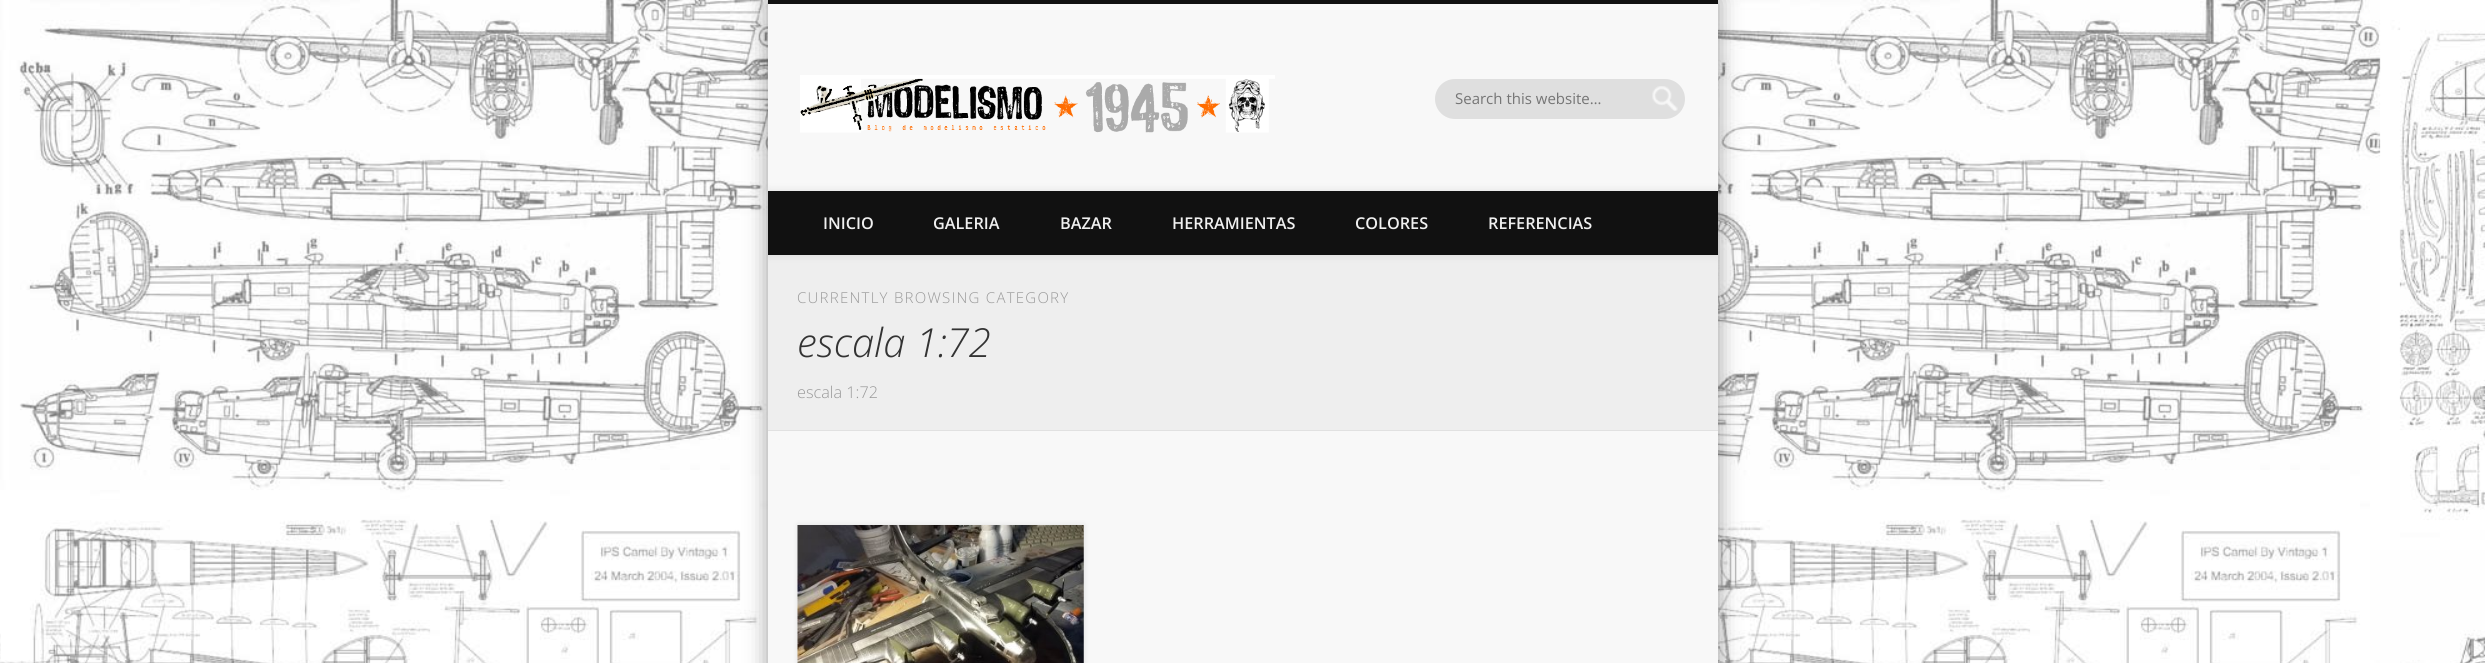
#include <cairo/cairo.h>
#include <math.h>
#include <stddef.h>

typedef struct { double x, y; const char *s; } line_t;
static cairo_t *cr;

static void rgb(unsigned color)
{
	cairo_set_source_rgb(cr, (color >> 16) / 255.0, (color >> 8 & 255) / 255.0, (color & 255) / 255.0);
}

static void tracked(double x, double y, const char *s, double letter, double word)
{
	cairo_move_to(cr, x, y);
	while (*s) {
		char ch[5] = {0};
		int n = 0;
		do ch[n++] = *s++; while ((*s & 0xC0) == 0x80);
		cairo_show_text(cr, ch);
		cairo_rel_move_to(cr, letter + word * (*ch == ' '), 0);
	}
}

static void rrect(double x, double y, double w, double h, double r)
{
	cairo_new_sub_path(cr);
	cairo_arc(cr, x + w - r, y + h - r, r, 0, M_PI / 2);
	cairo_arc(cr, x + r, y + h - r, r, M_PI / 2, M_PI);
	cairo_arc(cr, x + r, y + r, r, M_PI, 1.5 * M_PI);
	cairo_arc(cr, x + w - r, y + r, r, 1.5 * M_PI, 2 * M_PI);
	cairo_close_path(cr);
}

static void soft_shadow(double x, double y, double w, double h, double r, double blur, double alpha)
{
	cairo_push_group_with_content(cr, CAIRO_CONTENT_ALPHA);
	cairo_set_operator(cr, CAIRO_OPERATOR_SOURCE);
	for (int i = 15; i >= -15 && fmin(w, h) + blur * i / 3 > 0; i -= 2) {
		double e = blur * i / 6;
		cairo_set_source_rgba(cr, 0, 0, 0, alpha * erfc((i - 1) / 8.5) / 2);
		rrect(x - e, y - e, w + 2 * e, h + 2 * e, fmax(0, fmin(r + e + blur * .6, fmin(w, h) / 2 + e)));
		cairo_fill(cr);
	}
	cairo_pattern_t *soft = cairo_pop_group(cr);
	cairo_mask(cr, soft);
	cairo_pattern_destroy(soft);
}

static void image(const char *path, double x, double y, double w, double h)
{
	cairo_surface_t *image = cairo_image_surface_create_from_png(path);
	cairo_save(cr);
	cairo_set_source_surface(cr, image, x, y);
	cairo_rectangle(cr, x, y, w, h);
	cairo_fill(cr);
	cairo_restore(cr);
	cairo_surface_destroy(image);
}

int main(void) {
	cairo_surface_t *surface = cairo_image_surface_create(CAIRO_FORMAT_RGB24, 2485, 663);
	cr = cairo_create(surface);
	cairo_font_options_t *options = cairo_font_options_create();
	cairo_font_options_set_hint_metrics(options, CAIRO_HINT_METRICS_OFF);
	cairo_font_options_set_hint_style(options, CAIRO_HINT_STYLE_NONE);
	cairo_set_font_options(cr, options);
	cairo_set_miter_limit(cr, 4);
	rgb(0xffffff);
	cairo_paint(cr);
	image("img/1.png", 0, 0, 2485, 663);
	rgb(0x000000);
	soft_shadow(768, 0, 950, 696, 0, 11, 0.4);
	rgb(0xf8f8f8);
	cairo_rectangle(cr, 768, 4, 950, 659);
	cairo_fill(cr);
	rgb(0x111111);
	cairo_rectangle(cr, 768, 0, 950, 4);
	cairo_fill(cr);
	image("img/2.png", 800, 75, 475, 58);
	rgb(0xdfdfdf);
	rrect(1435, 79, 250, 40, 20);
	cairo_fill(cr);
	image("img/3.png", 1652, 86, 26, 25);
	rgb(0xeeeeee);
	cairo_rectangle(cr, 768, 255, 950, 175);
	cairo_fill(cr);
	cairo_save(cr);
	cairo_rectangle(cr, 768, 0, 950, 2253);
	cairo_clip(cr);
	rgb(0x000000);
	soft_shadow(768, 191, 950, 64, 0, 4.5, 0.1);
	cairo_restore(cr);
	rgb(0x111111);
	cairo_rectangle(cr, 768, 191, 950, 64);
	cairo_fill(cr);
	rgb(0xe1e1e1);
	cairo_rectangle(cr, 768, 430, 950, 1);
	cairo_fill(cr);
	rgb(0x000000);
	soft_shadow(798, 525, 286, 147, 0, 3, 0.1);
	image("img/4.png", 797, 525, 287, 138);
	cairo_select_font_face(cr, "Open Sans", CAIRO_FONT_SLANT_NORMAL, CAIRO_FONT_WEIGHT_NORMAL);
	cairo_set_font_size(cr, 15);
	rgb(0x757575);
	cairo_move_to(cr, 1455, 104);
	cairo_show_text(cr, "Search this website…");
	cairo_select_font_face(cr, "Open Sans SemiBold", CAIRO_FONT_SLANT_NORMAL, CAIRO_FONT_WEIGHT_NORMAL);
	cairo_set_font_size(cr, 16.25);
	rgb(0xf0f0f0);
	{
		static const line_t items[] = {
			{823, 229, "INICIO"},
			{933, 229, "GALERIA"},
			{1060, 229, "BAZAR"},
			{1172, 229, "HERRAMIENTAS"},
			{1355, 229, "COLORES"},
			{1488, 229, "REFERENCIAS"},
		};
		for (size_t i = 0; i < sizeof items / sizeof *items; i++) {
			cairo_move_to(cr, items[i].x, items[i].y);
			cairo_show_text(cr, items[i].s);
		}
	}
	cairo_select_font_face(cr, "Open Sans Light", CAIRO_FONT_SLANT_NORMAL, CAIRO_FONT_WEIGHT_NORMAL);
	cairo_set_font_size(cr, 15);
	rgb(0x999999);
	tracked(797, 303, "CURRENTLY BROWSING CATEGORY", 1.25, 0);
	cairo_select_font_face(cr, "Open Sans Light", CAIRO_FONT_SLANT_ITALIC, CAIRO_FONT_WEIGHT_NORMAL);
	cairo_set_font_size(cr, 40);
	rgb(0x333333);
	cairo_move_to(cr, 797, 357);
	cairo_show_text(cr, "escala 1:72");
	cairo_select_font_face(cr, "Open Sans Light", CAIRO_FONT_SLANT_NORMAL, CAIRO_FONT_WEIGHT_NORMAL);
	cairo_set_font_size(cr, 16.25);
	rgb(0x999999);
	cairo_move_to(cr, 797, 398);
	cairo_show_text(cr, "escala 1:72");
	cairo_surface_write_to_png(surface, "page.png");
	cairo_font_options_destroy(options);
	cairo_destroy(cr);
	cairo_surface_destroy(surface);
	return 0;
}
